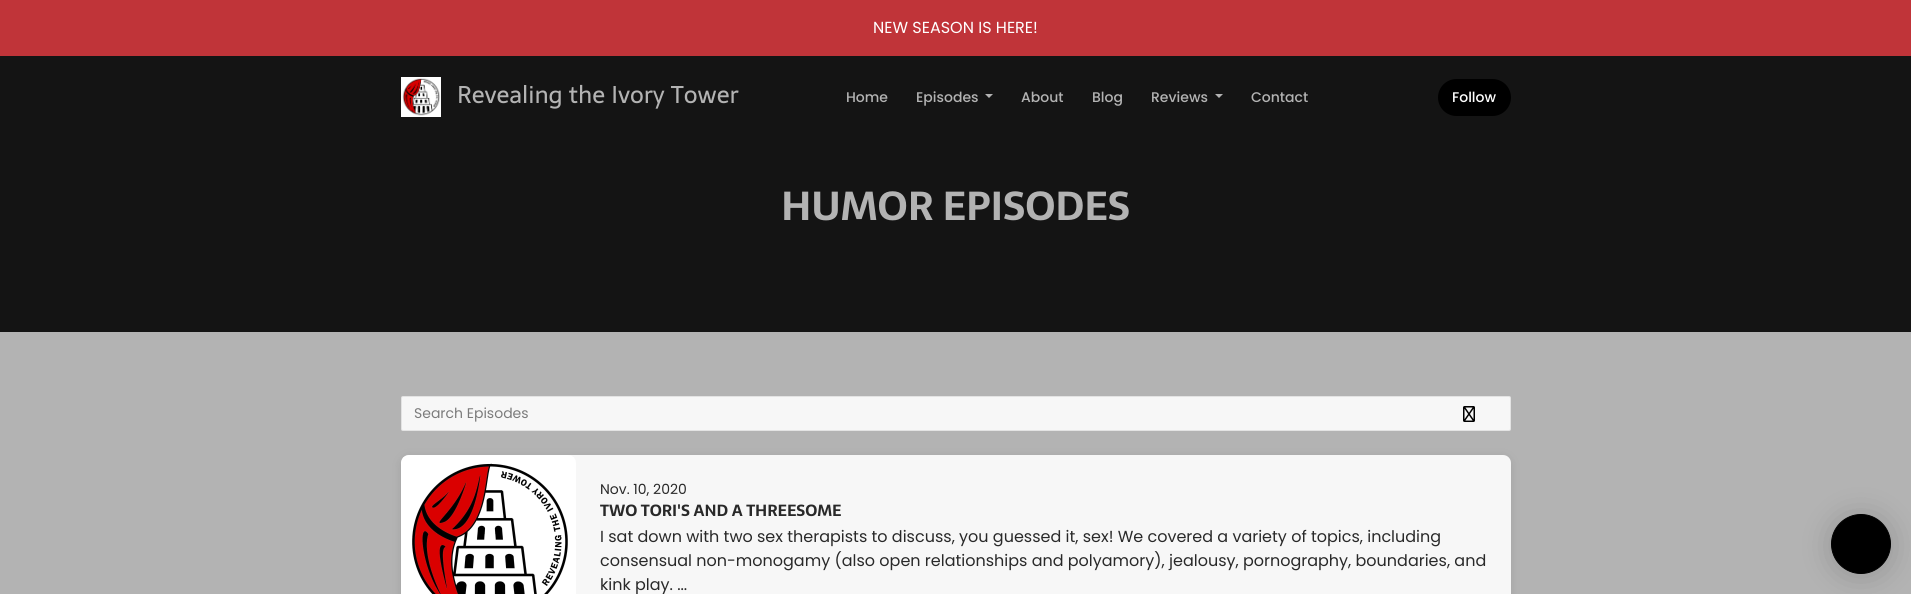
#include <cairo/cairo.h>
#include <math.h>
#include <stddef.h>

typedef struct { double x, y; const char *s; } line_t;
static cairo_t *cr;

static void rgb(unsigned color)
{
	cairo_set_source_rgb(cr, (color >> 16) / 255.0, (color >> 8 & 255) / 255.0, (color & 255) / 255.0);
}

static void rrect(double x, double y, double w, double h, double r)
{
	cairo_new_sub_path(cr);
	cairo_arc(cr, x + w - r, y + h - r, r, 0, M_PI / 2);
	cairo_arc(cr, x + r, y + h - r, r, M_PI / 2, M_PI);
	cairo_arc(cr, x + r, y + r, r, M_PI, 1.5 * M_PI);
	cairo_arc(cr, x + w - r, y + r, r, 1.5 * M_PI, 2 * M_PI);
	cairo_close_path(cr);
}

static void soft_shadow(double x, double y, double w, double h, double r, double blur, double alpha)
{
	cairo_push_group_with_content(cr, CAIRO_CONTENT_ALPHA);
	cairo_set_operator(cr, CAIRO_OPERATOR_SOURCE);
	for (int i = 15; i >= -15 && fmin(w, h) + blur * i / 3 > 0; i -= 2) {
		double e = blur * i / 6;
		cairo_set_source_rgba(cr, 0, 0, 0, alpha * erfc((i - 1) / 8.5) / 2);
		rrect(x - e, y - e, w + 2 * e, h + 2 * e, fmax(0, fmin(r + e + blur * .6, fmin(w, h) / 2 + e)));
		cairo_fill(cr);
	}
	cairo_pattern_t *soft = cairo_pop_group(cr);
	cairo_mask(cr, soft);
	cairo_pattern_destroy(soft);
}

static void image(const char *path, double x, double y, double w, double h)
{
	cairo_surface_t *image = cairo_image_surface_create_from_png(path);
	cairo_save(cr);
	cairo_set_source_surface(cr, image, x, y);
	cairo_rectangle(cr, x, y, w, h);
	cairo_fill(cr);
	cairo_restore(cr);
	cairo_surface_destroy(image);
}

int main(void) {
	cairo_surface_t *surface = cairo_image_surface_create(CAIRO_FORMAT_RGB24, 1911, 594);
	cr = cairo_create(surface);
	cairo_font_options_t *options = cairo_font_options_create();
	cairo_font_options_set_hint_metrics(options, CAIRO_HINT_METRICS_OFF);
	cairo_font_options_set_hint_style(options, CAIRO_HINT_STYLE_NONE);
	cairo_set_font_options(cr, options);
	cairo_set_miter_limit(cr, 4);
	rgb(0xb3b3b3);
	cairo_paint(cr);
	rgb(0xc03439);
	cairo_rectangle(cr, 0, 0, 1911, 56);
	cairo_fill(cr);
	rgb(0x141414);
	cairo_rectangle(cr, 0, 56, 1911, 276);
	cairo_fill(cr);
	image("img/1.png", 401, 77, 40, 40);
	rgb(0xb3b3b3);
	cairo_new_path(cr);
	cairo_move_to(cr, 985, 94);
	cairo_line_to(cr, 993, 94);
	cairo_line_to(cr, 989, 98);
	cairo_close_path(cr);
	cairo_fill(cr);
	cairo_new_path(cr);
	cairo_move_to(cr, 1215, 94);
	cairo_line_to(cr, 1223, 94);
	cairo_line_to(cr, 1219, 98);
	cairo_close_path(cr);
	cairo_fill(cr);
	rgb(0x000000);
	rrect(1438, 79, 73, 37, 18.5);
	cairo_fill(cr);
	rgb(0xf7f7f7);
	rrect(401, 396, 1110, 35, 2);
	cairo_fill(cr);
	rrect(401.5, 396.5, 1109, 34, 1.5);
	cairo_set_source_rgba(cr, 0.161, 0.161, 0.161, 0.1);
	cairo_set_line_width(cr, 1);
	cairo_stroke(cr);
	image("img/2.png", 1463, 406, 12, 16);
	rgb(0x000000);
	soft_shadow(401, 457, 1110, 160, 8, 5, 0.1);
	rgb(0xf7f7f7);
	rrect(401, 455, 1110, 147, 8);
	cairo_fill(cr);
	image("img/3.png", 401, 455, 175, 139);
	rgb(0x000000);
	soft_shadow(1831, 516, 60, 60, 30, 16, 0.16);
	rgb(0x000000);
	cairo_arc(cr, 1861, 544, 29.5, 0, 2 * M_PI);
	cairo_fill_preserve(cr);
	cairo_stroke(cr);
	cairo_select_font_face(cr, "Poppins", CAIRO_FONT_SLANT_NORMAL, CAIRO_FONT_WEIGHT_NORMAL);
	cairo_set_font_size(cr, 16);
	rgb(0xffffff);
	cairo_move_to(cr, 873, 33);
	cairo_show_text(cr, "NEW SEASON IS HERE!");
	cairo_select_font_face(cr, "Sarala", CAIRO_FONT_SLANT_NORMAL, CAIRO_FONT_WEIGHT_NORMAL);
	cairo_set_font_size(cr, 24);
	rgb(0xb3b3b3);
	cairo_move_to(cr, 457, 103);
	cairo_show_text(cr, "Revealing the Ivory Tower");
	cairo_select_font_face(cr, "Poppins Medium", CAIRO_FONT_SLANT_NORMAL, CAIRO_FONT_WEIGHT_NORMAL);
	cairo_set_font_size(cr, 14);
	{
		static const line_t items[] = {
			{846, 102, "Home"},
			{916, 102, "Episodes"},
			{1021, 102, "About"},
			{1092, 102, "Blog"},
			{1151, 102, "Reviews"},
			{1251, 102, "Contact"},
		};
		for (size_t i = 0; i < sizeof items / sizeof *items; i++) {
			cairo_move_to(cr, items[i].x, items[i].y);
			cairo_show_text(cr, items[i].s);
		}
	}
	rgb(0xffffff);
	cairo_move_to(cr, 1452, 102);
	cairo_show_text(cr, "Follow");
	cairo_select_font_face(cr, "Sarala", CAIRO_FONT_SLANT_NORMAL, CAIRO_FONT_WEIGHT_BOLD);
	cairo_set_font_size(cr, 40);
	rgb(0xb3b3b3);
	cairo_move_to(cr, 781, 220);
	cairo_show_text(cr, "HUMOR EPISODES");
	cairo_select_font_face(cr, "Poppins", CAIRO_FONT_SLANT_NORMAL, CAIRO_FONT_WEIGHT_NORMAL);
	cairo_set_font_size(cr, 14);
	rgb(0x7b7b7b);
	cairo_move_to(cr, 414, 418);
	cairo_show_text(cr, "Search Episodes");
	rgb(0x292929);
	cairo_move_to(cr, 600, 494);
	cairo_show_text(cr, "Nov. 10, 2020");
	cairo_select_font_face(cr, "Sarala", CAIRO_FONT_SLANT_NORMAL, CAIRO_FONT_WEIGHT_BOLD);
	cairo_set_font_size(cr, 16);
	cairo_move_to(cr, 600, 516);
	cairo_show_text(cr, "TWO TORI'S AND A THREESOME");
	cairo_select_font_face(cr, "Poppins", CAIRO_FONT_SLANT_NORMAL, CAIRO_FONT_WEIGHT_NORMAL);
	{
		static const line_t items[] = {
			{600, 542, "I sat down with two sex therapists to discuss, you guessed it, sex! We covered a variety of topics, including"},
			{600, 566, "consensual non-monogamy (also open relationships and polyamory), jealousy, pornography, boundaries, and"},
			{600, 590, "kink play. ..."},
		};
		for (size_t i = 0; i < sizeof items / sizeof *items; i++) {
			cairo_move_to(cr, items[i].x, items[i].y);
			cairo_show_text(cr, items[i].s);
		}
	}
	cairo_surface_write_to_png(surface, "page.png");
	cairo_font_options_destroy(options);
	cairo_destroy(cr);
	cairo_surface_destroy(surface);
	return 0;
}
